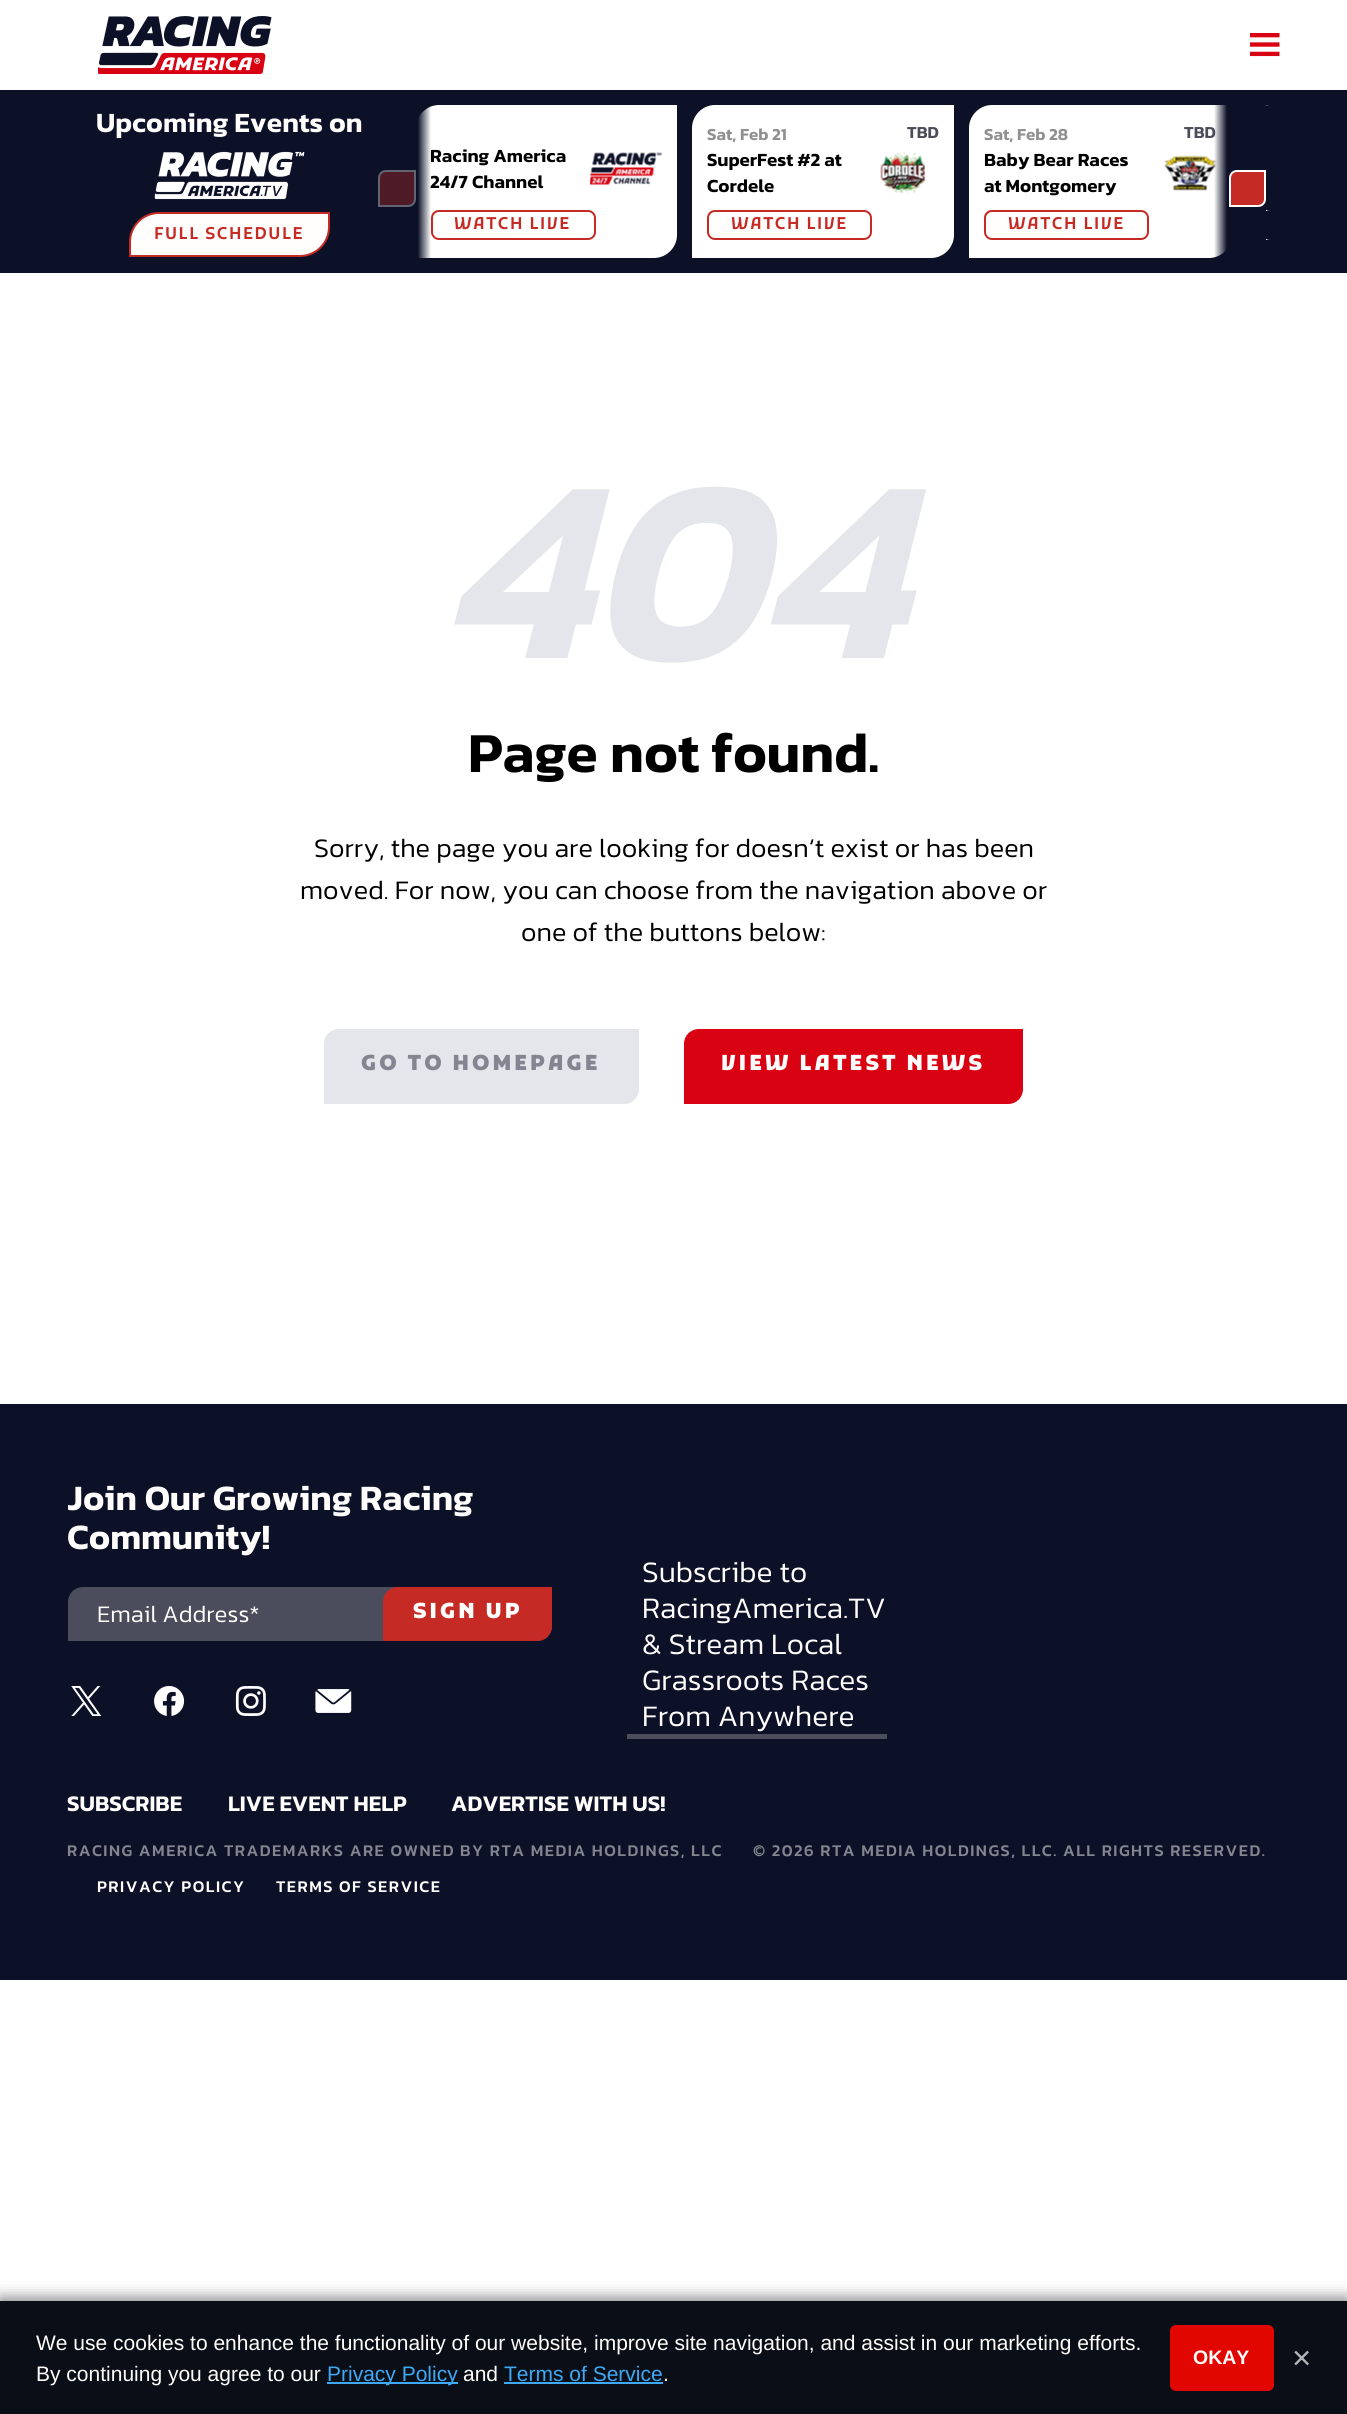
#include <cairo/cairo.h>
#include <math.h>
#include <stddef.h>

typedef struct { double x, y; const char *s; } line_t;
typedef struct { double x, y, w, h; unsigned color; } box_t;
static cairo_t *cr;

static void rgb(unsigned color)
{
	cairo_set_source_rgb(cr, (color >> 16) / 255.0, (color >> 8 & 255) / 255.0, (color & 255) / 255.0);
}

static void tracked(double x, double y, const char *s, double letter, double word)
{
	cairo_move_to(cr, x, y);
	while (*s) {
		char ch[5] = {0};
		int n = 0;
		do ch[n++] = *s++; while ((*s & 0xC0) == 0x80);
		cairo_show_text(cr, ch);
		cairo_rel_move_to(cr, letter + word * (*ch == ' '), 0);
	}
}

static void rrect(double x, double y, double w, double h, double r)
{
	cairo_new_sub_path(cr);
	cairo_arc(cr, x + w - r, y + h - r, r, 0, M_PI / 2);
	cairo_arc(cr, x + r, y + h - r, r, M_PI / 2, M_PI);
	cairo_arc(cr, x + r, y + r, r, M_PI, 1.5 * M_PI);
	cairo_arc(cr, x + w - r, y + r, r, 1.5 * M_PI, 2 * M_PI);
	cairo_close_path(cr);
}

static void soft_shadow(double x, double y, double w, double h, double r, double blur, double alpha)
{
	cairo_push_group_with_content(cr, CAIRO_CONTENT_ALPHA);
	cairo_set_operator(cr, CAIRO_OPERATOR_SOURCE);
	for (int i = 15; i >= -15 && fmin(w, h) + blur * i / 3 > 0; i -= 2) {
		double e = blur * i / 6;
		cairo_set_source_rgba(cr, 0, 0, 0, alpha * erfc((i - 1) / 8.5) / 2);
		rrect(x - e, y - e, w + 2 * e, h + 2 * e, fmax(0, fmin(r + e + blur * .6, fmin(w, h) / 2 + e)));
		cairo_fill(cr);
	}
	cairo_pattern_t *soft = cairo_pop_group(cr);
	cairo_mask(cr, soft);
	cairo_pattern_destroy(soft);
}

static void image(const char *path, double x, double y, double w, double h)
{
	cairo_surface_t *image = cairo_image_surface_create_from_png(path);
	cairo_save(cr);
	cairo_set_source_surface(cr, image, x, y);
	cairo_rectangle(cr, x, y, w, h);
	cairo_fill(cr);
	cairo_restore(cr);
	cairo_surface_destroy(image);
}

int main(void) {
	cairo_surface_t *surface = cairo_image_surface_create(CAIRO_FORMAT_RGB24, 1347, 2414);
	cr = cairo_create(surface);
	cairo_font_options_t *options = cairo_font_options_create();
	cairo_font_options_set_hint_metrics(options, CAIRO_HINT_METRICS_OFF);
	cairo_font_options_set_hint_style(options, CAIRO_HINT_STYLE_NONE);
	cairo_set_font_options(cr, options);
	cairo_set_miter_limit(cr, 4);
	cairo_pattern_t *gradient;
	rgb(0xffffff);
	cairo_paint(cr);
	image("img/1.png", 98, 16, 174, 58);
	image("img/2.png", 1250, 33, 30, 24);
	rgb(0x0d1127);
	cairo_rectangle(cr, 0, 90, 1347, 183);
	cairo_fill(cr);
	image("img/3.png", 154, 151, 151, 49);
	rgb(0xfffefd);
	cairo_new_path(cr);
	cairo_move_to(cr, 159, 213);
	cairo_line_to(cr, 329, 213);
	cairo_line_to(cr, 329, 227);
	cairo_curve_to(cr, 329, 243, 316, 256, 300, 256);
	cairo_line_to(cr, 130, 256);
	cairo_line_to(cr, 130, 242);
	cairo_curve_to(cr, 130, 226, 143, 213, 159, 213);
	cairo_close_path(cr);
	cairo_fill_preserve(cr);
	rgb(0xc62a24);
	cairo_stroke(cr);
	rgb(0x4e1a26);
	cairo_new_path(cr);
	cairo_move_to(cr, 386, 171);
	cairo_line_to(cr, 415, 171);
	cairo_line_to(cr, 415, 199);
	cairo_curve_to(cr, 415, 203, 412, 206, 408, 206);
	cairo_line_to(cr, 379, 206);
	cairo_line_to(cr, 379, 178);
	cairo_curve_to(cr, 379, 174, 382, 171, 386, 171);
	cairo_close_path(cr);
	cairo_fill_preserve(cr);
	rgb(0x626473);
	cairo_stroke(cr);
	rgb(0xffffff);
	cairo_new_path(cr);
	cairo_move_to(cr, 439, 105);
	cairo_line_to(cr, 677, 105);
	cairo_line_to(cr, 677, 235);
	cairo_curve_to(cr, 677, 247.5, 666.5, 258, 654, 258);
	cairo_line_to(cr, 416, 258);
	cairo_line_to(cr, 416, 128);
	cairo_curve_to(cr, 416, 115.5, 426.5, 105, 439, 105);
	cairo_close_path(cr);
	cairo_fill(cr);
	gradient = cairo_pattern_create_linear(378, 182, 431, 182);
	cairo_pattern_add_color_stop_rgba(gradient, 0.5, 0.051, 0.067, 0.153, 1);
	cairo_pattern_add_color_stop_rgba(gradient, 0.75, 0.051, 0.067, 0.153, 1);
	cairo_pattern_add_color_stop_rgba(gradient, 1, 0.051, 0.067, 0.153, 0);
	cairo_set_source(cr, gradient);
	cairo_pattern_destroy(gradient);
	cairo_rectangle(cr, 416, 106, 15, 152);
	cairo_fill(cr);
	image("img/4.png", 590, 152, 72, 33);
	gradient = cairo_pattern_create_linear(357, 137, 507, 287);
	cairo_pattern_add_color_stop_rgba(gradient, 0.5, 0.965, 0.173, 0.231, 1);
	cairo_pattern_add_color_stop_rgba(gradient, 0.51, 1, 0.996, 0.992, 1);
	cairo_set_source(cr, gradient);
	cairo_pattern_destroy(gradient);
	cairo_new_path(cr);
	cairo_move_to(cr, 439, 210);
	cairo_line_to(cr, 507, 210);
	cairo_line_to(cr, 507, 240);
	cairo_line_to(cr, 439, 240);
	cairo_curve_to(cr, 434.5, 240, 431, 236.5, 431, 232);
	cairo_line_to(cr, 431, 218);
	cairo_curve_to(cr, 431, 213.5, 434.5, 210, 439, 210);
	cairo_close_path(cr);
	cairo_fill(cr);
	rrect(432, 211, 163, 28, 7);
	rgb(0xc62a24);
	cairo_stroke(cr);
	rgb(0xffffff);
	cairo_new_path(cr);
	cairo_move_to(cr, 715, 105);
	cairo_line_to(cr, 954, 105);
	cairo_line_to(cr, 954, 235);
	cairo_curve_to(cr, 954, 247.5, 943.5, 258, 931, 258);
	cairo_line_to(cr, 692, 258);
	cairo_line_to(cr, 692, 128);
	cairo_curve_to(cr, 692, 115.5, 702.5, 105, 715, 105);
	cairo_close_path(cr);
	cairo_fill(cr);
	image("img/5.png", 880, 152, 46, 42);
	gradient = cairo_pattern_create_linear(633, 137, 783, 287);
	cairo_pattern_add_color_stop_rgba(gradient, 0.5, 0.965, 0.173, 0.231, 1);
	cairo_pattern_add_color_stop_rgba(gradient, 0.51, 1, 0.996, 0.992, 1);
	cairo_set_source(cr, gradient);
	cairo_pattern_destroy(gradient);
	cairo_new_path(cr);
	cairo_move_to(cr, 715, 210);
	cairo_line_to(cr, 783, 210);
	cairo_line_to(cr, 783, 240);
	cairo_line_to(cr, 715, 240);
	cairo_curve_to(cr, 710.5, 240, 707, 236.5, 707, 232);
	cairo_line_to(cr, 707, 218);
	cairo_curve_to(cr, 707, 213.5, 710.5, 210, 715, 210);
	cairo_close_path(cr);
	cairo_fill(cr);
	rrect(708, 211, 163, 28, 7);
	rgb(0xc62a24);
	cairo_stroke(cr);
	rgb(0xffffff);
	cairo_new_path(cr);
	cairo_move_to(cr, 992, 105);
	cairo_line_to(cr, 1232, 105);
	cairo_line_to(cr, 1232, 235);
	cairo_curve_to(cr, 1232, 247.5, 1221.5, 258, 1209, 258);
	cairo_line_to(cr, 969, 258);
	cairo_line_to(cr, 969, 128);
	cairo_curve_to(cr, 969, 115.5, 979.5, 105, 992, 105);
	cairo_close_path(cr);
	cairo_fill(cr);
	image("img/6.png", 1164, 155, 53, 36);
	gradient = cairo_pattern_create_linear(911, 137, 1061, 287);
	cairo_pattern_add_color_stop_rgba(gradient, 0.5, 0.965, 0.173, 0.231, 1);
	cairo_pattern_add_color_stop_rgba(gradient, 0.51, 1, 0.996, 0.992, 1);
	cairo_set_source(cr, gradient);
	cairo_pattern_destroy(gradient);
	cairo_new_path(cr);
	cairo_move_to(cr, 992, 210);
	cairo_line_to(cr, 1061, 210);
	cairo_line_to(cr, 1061, 240);
	cairo_line_to(cr, 992, 240);
	cairo_curve_to(cr, 987.5, 240, 984, 236.5, 984, 232);
	cairo_line_to(cr, 984, 218);
	cairo_curve_to(cr, 984, 213.5, 987.5, 210, 992, 210);
	cairo_close_path(cr);
	cairo_fill(cr);
	rrect(985, 211, 163, 28, 7);
	rgb(0xc62a24);
	cairo_stroke(cr);
	rgb(0xffffff);
	cairo_new_path(cr);
	cairo_move_to(cr, 1270, 105);
	cairo_line_to(cr, 1266, 105);
	cairo_line_to(cr, 1266, 258);
	cairo_line_to(cr, 1247, 258);
	cairo_line_to(cr, 1247, 128);
	cairo_curve_to(cr, 1247, 115.5, 1257.5, 105, 1270, 105);
	cairo_close_path(cr);
	cairo_fill(cr);
	rgb(0xfffefd);
	cairo_new_path(cr);
	cairo_move_to(cr, 1270, 210);
	cairo_line_to(cr, 1266, 210);
	cairo_line_to(cr, 1266, 240);
	cairo_line_to(cr, 1270, 240);
	cairo_curve_to(cr, 1265.5, 240, 1262, 236.5, 1262, 232);
	cairo_line_to(cr, 1262, 218);
	cairo_curve_to(cr, 1262, 213.5, 1265.5, 210, 1270, 210);
	cairo_close_path(cr);
	cairo_fill(cr);
	rgb(0xe5e6eb);
	cairo_new_path(cr);
	cairo_move_to(cr, 339, 1029);
	cairo_line_to(cr, 639, 1029);
	cairo_line_to(cr, 639, 1089);
	cairo_curve_to(cr, 639, 1097.5, 632.5, 1104, 624, 1104);
	cairo_line_to(cr, 324, 1104);
	cairo_line_to(cr, 324, 1044);
	cairo_curve_to(cr, 324, 1035.5, 330.5, 1029, 339, 1029);
	cairo_close_path(cr);
	cairo_fill(cr);
	rgb(0xd80212);
	cairo_new_path(cr);
	cairo_move_to(cr, 699, 1029);
	cairo_line_to(cr, 1023, 1029);
	cairo_line_to(cr, 1023, 1089);
	cairo_curve_to(cr, 1023, 1097.5, 1016.5, 1104, 1008, 1104);
	cairo_line_to(cr, 684, 1104);
	cairo_line_to(cr, 684, 1044);
	cairo_curve_to(cr, 684, 1035.5, 690.5, 1029, 699, 1029);
	cairo_close_path(cr);
	cairo_fill(cr);
	rgb(0x0d1127);
	cairo_rectangle(cr, 0, 1404, 1347, 576);
	cairo_fill(cr);
	rgb(0x4b4d5c);
	cairo_new_path(cr);
	cairo_move_to(cr, 83, 1587);
	cairo_line_to(cr, 552, 1587);
	cairo_line_to(cr, 552, 1626);
	cairo_curve_to(cr, 552, 1634.5, 545.5, 1641, 537, 1641);
	cairo_line_to(cr, 68, 1641);
	cairo_line_to(cr, 68, 1602);
	cairo_curve_to(cr, 68, 1593.5, 74.5, 1587, 83, 1587);
	cairo_close_path(cr);
	cairo_fill(cr);
	rgb(0xc62a24);
	cairo_new_path(cr);
	cairo_move_to(cr, 398, 1587);
	cairo_line_to(cr, 552, 1587);
	cairo_line_to(cr, 552, 1626);
	cairo_curve_to(cr, 552, 1634.5, 545.5, 1641, 537, 1641);
	cairo_line_to(cr, 383, 1641);
	cairo_line_to(cr, 383, 1602);
	cairo_curve_to(cr, 383, 1593.5, 389.5, 1587, 398, 1587);
	cairo_close_path(cr);
	cairo_fill(cr);
	image("img/7.png", 71, 1686, 31, 30);
	image("img/8.png", 154, 1686, 31, 30);
	image("img/9.png", 235, 1686, 31, 30);
	image("img/10.png", 315, 1689, 37, 24);
	rgb(0x4b4d5c);
	cairo_rectangle(cr, 627, 1734, 260, 5);
	cairo_fill(cr);
	rgb(0x000000);
	soft_shadow(0, 2298, 1347, 114, 0, 7.5, 0.5);
	{
		static const box_t items[] = {
			{0, 2301, 1347, 113, 0x0a0e16},
			{327, 2382, 131, 2, 0x3fa9f5},
			{504, 2382, 159, 2, 0x3fa9f5},
		};
		for (size_t i = 0; i < sizeof items / sizeof *items; i++) {
			rgb(items[i].color);
			cairo_rectangle(cr, items[i].x, items[i].y, items[i].w, items[i].h);
			cairo_fill(cr);
		}
	}
	rgb(0xe10600);
	rrect(1170, 2325, 104, 66, 6);
	cairo_fill(cr);
	cairo_select_font_face(cr, "Kanit SemiBold", CAIRO_FONT_SLANT_NORMAL, CAIRO_FONT_WEIGHT_NORMAL);
	cairo_set_font_size(cr, 28.1);
	rgb(0xfffefd);
	cairo_move_to(cr, 96, 132);
	cairo_show_text(cr, "Upcoming Events on");
	cairo_select_font_face(cr, "Kufam SemiBold", CAIRO_FONT_SLANT_NORMAL, CAIRO_FONT_WEIGHT_NORMAL);
	cairo_set_font_size(cr, 16.5);
	rgb(0xc62a24);
	tracked(154, 239, "FULL SCHEDULE", 1.5, 0);
	cairo_select_font_face(cr, "Kanit SemiBold", CAIRO_FONT_SLANT_NORMAL, CAIRO_FONT_WEIGHT_NORMAL);
	cairo_set_font_size(cr, 18.75);
	rgb(0x000000);
	cairo_move_to(cr, 430, 162);
	cairo_show_text(cr, "Racing America");
	cairo_move_to(cr, 430, 188);
	cairo_show_text(cr, "24/7 Channel");
	cairo_select_font_face(cr, "Kufam SemiBold", CAIRO_FONT_SLANT_NORMAL, CAIRO_FONT_WEIGHT_NORMAL);
	cairo_set_font_size(cr, 16.5);
	rgb(0xc62a24);
	tracked(454, 229, "WATCH LIVE", 1.5, 0);
	cairo_select_font_face(cr, "Kanit SemiBold", CAIRO_FONT_SLANT_NORMAL, CAIRO_FONT_WEIGHT_NORMAL);
	cairo_set_font_size(cr, 17);
	rgb(0x909090);
	cairo_move_to(cr, 707, 140);
	cairo_show_text(cr, "Sat, Feb 21");
	rgb(0x4b4d5c);
	cairo_move_to(cr, 907, 138);
	cairo_show_text(cr, "TBD");
	cairo_set_font_size(cr, 18.75);
	rgb(0x000000);
	cairo_move_to(cr, 707, 166);
	cairo_show_text(cr, "SuperFest #2 at");
	cairo_move_to(cr, 707, 192);
	cairo_show_text(cr, "Cordele");
	cairo_select_font_face(cr, "Kufam SemiBold", CAIRO_FONT_SLANT_NORMAL, CAIRO_FONT_WEIGHT_NORMAL);
	cairo_set_font_size(cr, 16.5);
	rgb(0xc62a24);
	tracked(731, 229, "WATCH LIVE", 1.5, 0);
	cairo_select_font_face(cr, "Kanit SemiBold", CAIRO_FONT_SLANT_NORMAL, CAIRO_FONT_WEIGHT_NORMAL);
	cairo_set_font_size(cr, 17);
	rgb(0x909090);
	cairo_move_to(cr, 984, 140);
	cairo_show_text(cr, "Sat, Feb 28");
	rgb(0x4b4d5c);
	cairo_move_to(cr, 1184, 138);
	cairo_show_text(cr, "TBD");
	cairo_set_font_size(cr, 18.75);
	rgb(0x000000);
	cairo_move_to(cr, 984, 166);
	cairo_show_text(cr, "Baby Bear Races");
	cairo_move_to(cr, 984, 192);
	cairo_show_text(cr, "at Montgomery");
	cairo_select_font_face(cr, "Kufam SemiBold", CAIRO_FONT_SLANT_NORMAL, CAIRO_FONT_WEIGHT_NORMAL);
	cairo_set_font_size(cr, 16.5);
	rgb(0xc62a24);
	tracked(1008, 229, "WATCH LIVE", 1.5, 0);
	gradient = cairo_pattern_create_linear(1266, 182, 1214, 182);
	cairo_pattern_add_color_stop_rgba(gradient, 0.5, 0.051, 0.067, 0.153, 1);
	cairo_pattern_add_color_stop_rgba(gradient, 0.75, 0.051, 0.067, 0.153, 1);
	cairo_pattern_add_color_stop_rgba(gradient, 1, 0.051, 0.067, 0.153, 0);
	cairo_set_source(cr, gradient);
	cairo_pattern_destroy(gradient);
	cairo_rectangle(cr, 1214, 105, 52, 153);
	cairo_fill(cr);
	rgb(0xc62a24);
	cairo_new_path(cr);
	cairo_move_to(cr, 1237, 171);
	cairo_line_to(cr, 1265, 171);
	cairo_line_to(cr, 1265, 199);
	cairo_curve_to(cr, 1265, 203, 1262, 206, 1258, 206);
	cairo_line_to(cr, 1230, 206);
	cairo_line_to(cr, 1230, 178);
	cairo_curve_to(cr, 1230, 174, 1233, 171, 1237, 171);
	cairo_close_path(cr);
	cairo_fill_preserve(cr);
	rgb(0xffffff);
	cairo_stroke(cr);
	cairo_select_font_face(cr, "Kanit SemiBold", CAIRO_FONT_SLANT_ITALIC, CAIRO_FONT_WEIGHT_NORMAL);
	cairo_set_font_size(cr, 262);
	rgb(0xe5e6eb);
	cairo_move_to(cr, 443, 658);
	cairo_show_text(cr, "404");
	cairo_select_font_face(cr, "Kanit SemiBold", CAIRO_FONT_SLANT_NORMAL, CAIRO_FONT_WEIGHT_NORMAL);
	cairo_set_font_size(cr, 57);
	rgb(0x000000);
	cairo_move_to(cr, 468, 772);
	cairo_show_text(cr, "Page not found.");
	cairo_select_font_face(cr, "Kanit Light", CAIRO_FONT_SLANT_NORMAL, CAIRO_FONT_WEIGHT_NORMAL);
	cairo_set_font_size(cr, 27);
	{
		static const line_t items[] = {
			{314, 857, "Sorry, the page you are looking for doesn‘t exist or has been"},
			{300, 899, "moved. For now, you can choose from the navigation above or"},
			{521, 941, "one of the buttons below:"},
		};
		for (size_t i = 0; i < sizeof items / sizeof *items; i++) {
			cairo_move_to(cr, items[i].x, items[i].y);
			cairo_show_text(cr, items[i].s);
		}
	}
	cairo_select_font_face(cr, "Kufam Black", CAIRO_FONT_SLANT_NORMAL, CAIRO_FONT_WEIGHT_NORMAL);
	cairo_set_font_size(cr, 21);
	rgb(0x838590);
	tracked(361, 1070, "GO TO HOMEPAGE", 3, 0);
	rgb(0xfffefd);
	tracked(721, 1070, "VIEW LATEST NEWS", 3, 0);
	cairo_save(cr);
	cairo_rectangle(cr, 68, 1479, 1212, 426);
	cairo_clip(cr);
	cairo_select_font_face(cr, "Kanit SemiBold", CAIRO_FONT_SLANT_NORMAL, CAIRO_FONT_WEIGHT_NORMAL);
	cairo_set_font_size(cr, 36);
	cairo_move_to(cr, 67, 1510);
	cairo_show_text(cr, "Join Our Growing Racing");
	cairo_restore(cr);
	cairo_select_font_face(cr, "Kanit SemiBold", CAIRO_FONT_SLANT_NORMAL, CAIRO_FONT_WEIGHT_NORMAL);
	cairo_set_font_size(cr, 36);
	cairo_move_to(cr, 67, 1549);
	cairo_show_text(cr, "Community!");
	cairo_select_font_face(cr, "Kanit Light", CAIRO_FONT_SLANT_NORMAL, CAIRO_FONT_WEIGHT_NORMAL);
	cairo_set_font_size(cr, 24);
	cairo_move_to(cr, 97, 1622);
	cairo_show_text(cr, "Email Address*");
	cairo_select_font_face(cr, "Kufam Black", CAIRO_FONT_SLANT_NORMAL, CAIRO_FONT_WEIGHT_NORMAL);
	cairo_set_font_size(cr, 21);
	tracked(413, 1618, "SIGN UP", 3, 0);
	cairo_select_font_face(cr, "Kanit Light", CAIRO_FONT_SLANT_NORMAL, CAIRO_FONT_WEIGHT_NORMAL);
	cairo_set_font_size(cr, 30);
	{
		static const line_t items[] = {
			{642, 1582, "Subscribe to"},
			{642, 1618, "RacingAmerica.TV"},
			{642, 1654, "& Stream Local"},
			{642, 1690, "Grassroots Races"},
			{642, 1726, "From Anywhere"},
		};
		for (size_t i = 0; i < sizeof items / sizeof *items; i++) {
			cairo_move_to(cr, items[i].x, items[i].y);
			cairo_show_text(cr, items[i].s);
		}
	}
	cairo_select_font_face(cr, "Kanit SemiBold", CAIRO_FONT_SLANT_NORMAL, CAIRO_FONT_WEIGHT_NORMAL);
	cairo_set_font_size(cr, 22.5);
	{
		static const line_t items[] = {
			{67, 1811, "SUBSCRIBE"},
			{228, 1811, "LIVE EVENT HELP"},
			{451, 1811, "ADVERTISE WITH US!"},
		};
		for (size_t i = 0; i < sizeof items / sizeof *items; i++) {
			cairo_move_to(cr, items[i].x, items[i].y);
			cairo_show_text(cr, items[i].s);
		}
	}
	cairo_select_font_face(cr, "Kanit Medium", CAIRO_FONT_SLANT_NORMAL, CAIRO_FONT_WEIGHT_NORMAL);
	cairo_set_font_size(cr, 16.5);
	rgb(0x838590);
	tracked(67, 1856, "RACING AMERICA TRADEMARKS ARE OWNED BY RTA MEDIA HOLDINGS, LLC", 1.5, 0);
	tracked(753, 1856, "© 2026 RTA MEDIA HOLDINGS, LLC. ALL RIGHTS RESERVED.", 1.5, 0);
	rgb(0xfffefd);
	tracked(97, 1892, "PRIVACY POLICY", 1.5, 0);
	tracked(276, 1892, "TERMS OF SERVICE", 1.5, 0);
	cairo_select_font_face(cr, "Liberation Sans", CAIRO_FONT_SLANT_NORMAL, CAIRO_FONT_WEIGHT_NORMAL);
	cairo_set_font_size(cr, 21);
	cairo_move_to(cr, 36, 2350);
	cairo_show_text(cr, "We use cookies to enhance the functionality of our website, improve site navigation, and assist in our marketing efforts.");
	cairo_move_to(cr, 36, 2381);
	cairo_show_text(cr, "By continuing you agree to our");
	rgb(0x3fa9f5);
	cairo_move_to(cr, 327, 2381);
	cairo_show_text(cr, "Privacy Policy");
	rgb(0xfffefd);
	cairo_move_to(cr, 463, 2381);
	cairo_show_text(cr, "and");
	rgb(0x3fa9f5);
	cairo_move_to(cr, 504, 2381);
	cairo_show_text(cr, "Terms of Service");
	rgb(0xfffefd);
	cairo_move_to(cr, 663, 2381);
	cairo_show_text(cr, ".");
	cairo_select_font_face(cr, "Liberation Sans", CAIRO_FONT_SLANT_NORMAL, CAIRO_FONT_WEIGHT_BOLD);
	cairo_set_font_size(cr, 19.5);
	cairo_move_to(cr, 1193, 2364);
	cairo_show_text(cr, "OKAY");
	cairo_select_font_face(cr, "Liberation Sans", CAIRO_FONT_SLANT_NORMAL, CAIRO_FONT_WEIGHT_NORMAL);
	cairo_set_font_size(cr, 33);
	rgb(0xb6b7b9);
	cairo_move_to(cr, 1292, 2369);
	cairo_show_text(cr, "×");
	cairo_surface_write_to_png(surface, "page.png");
	cairo_font_options_destroy(options);
	cairo_destroy(cr);
	cairo_surface_destroy(surface);
	return 0;
}
